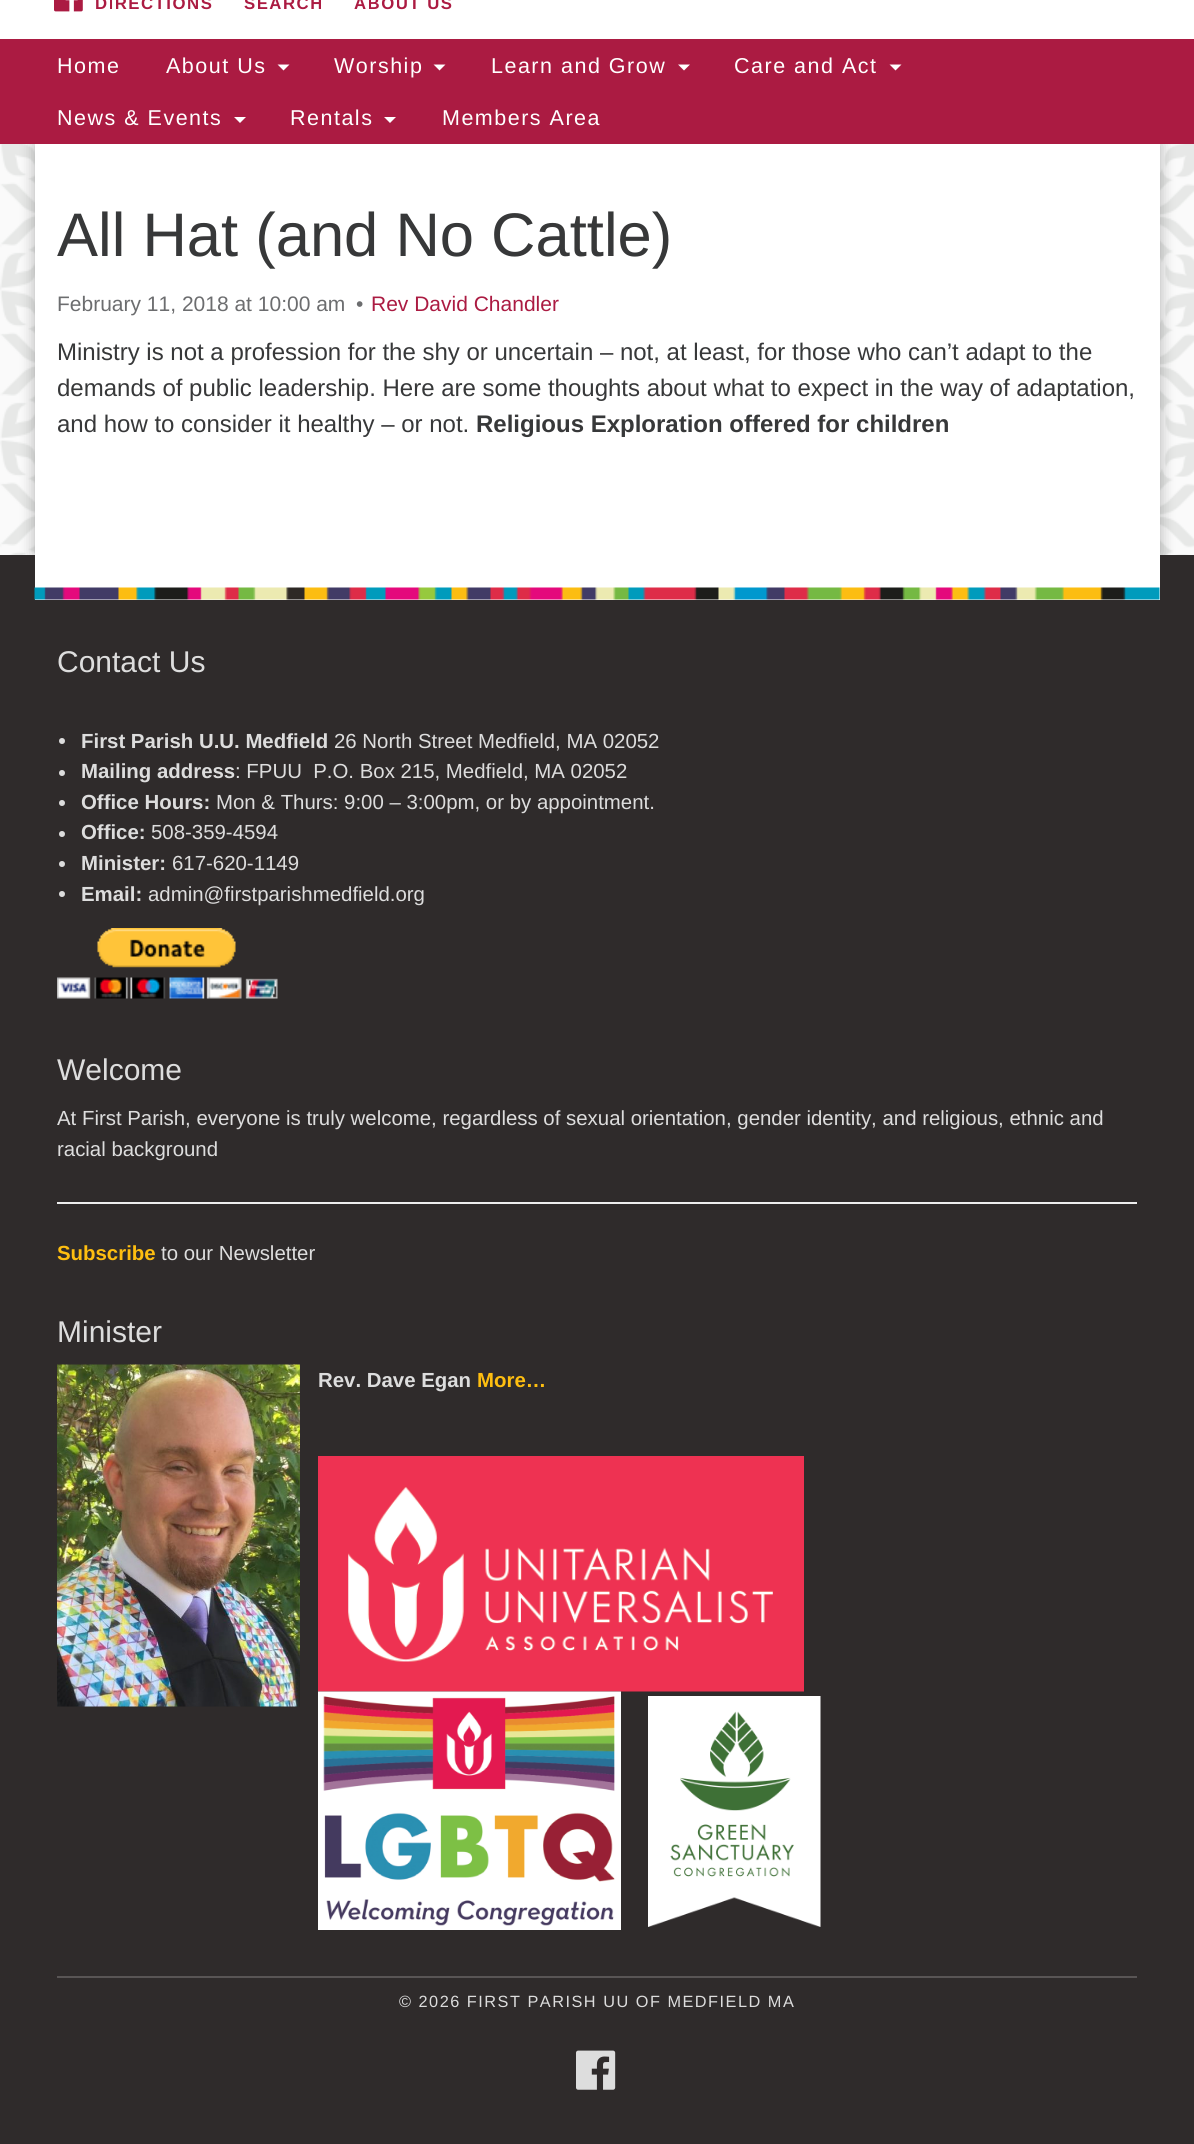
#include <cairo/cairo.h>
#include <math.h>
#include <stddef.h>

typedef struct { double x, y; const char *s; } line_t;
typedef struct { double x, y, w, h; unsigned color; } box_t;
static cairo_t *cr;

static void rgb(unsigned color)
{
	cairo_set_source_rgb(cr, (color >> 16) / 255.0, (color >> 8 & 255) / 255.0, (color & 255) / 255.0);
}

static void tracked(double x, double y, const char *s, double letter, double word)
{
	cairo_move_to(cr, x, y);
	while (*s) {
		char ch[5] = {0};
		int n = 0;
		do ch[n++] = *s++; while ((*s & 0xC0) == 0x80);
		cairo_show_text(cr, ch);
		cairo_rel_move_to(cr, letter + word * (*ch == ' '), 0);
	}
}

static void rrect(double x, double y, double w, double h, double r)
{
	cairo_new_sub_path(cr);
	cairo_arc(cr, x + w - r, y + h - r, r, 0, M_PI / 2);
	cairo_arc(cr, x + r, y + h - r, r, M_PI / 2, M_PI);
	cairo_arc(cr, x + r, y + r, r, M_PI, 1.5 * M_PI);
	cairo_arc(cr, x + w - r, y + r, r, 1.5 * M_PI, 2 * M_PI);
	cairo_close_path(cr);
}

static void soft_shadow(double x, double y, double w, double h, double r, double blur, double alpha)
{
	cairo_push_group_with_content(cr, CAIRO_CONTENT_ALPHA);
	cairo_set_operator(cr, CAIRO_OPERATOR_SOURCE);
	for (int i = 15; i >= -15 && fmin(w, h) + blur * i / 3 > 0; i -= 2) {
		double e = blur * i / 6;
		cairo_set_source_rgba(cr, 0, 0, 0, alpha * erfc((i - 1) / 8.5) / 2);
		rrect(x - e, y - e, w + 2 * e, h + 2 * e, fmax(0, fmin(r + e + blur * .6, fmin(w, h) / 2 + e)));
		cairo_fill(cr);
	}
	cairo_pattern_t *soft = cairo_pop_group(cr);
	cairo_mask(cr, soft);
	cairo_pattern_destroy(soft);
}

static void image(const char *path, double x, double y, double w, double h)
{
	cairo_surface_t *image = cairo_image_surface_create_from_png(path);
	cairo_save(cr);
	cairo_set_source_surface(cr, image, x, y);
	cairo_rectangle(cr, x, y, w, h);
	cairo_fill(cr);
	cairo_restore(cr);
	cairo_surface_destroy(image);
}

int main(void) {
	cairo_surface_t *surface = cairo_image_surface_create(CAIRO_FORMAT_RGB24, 1194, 2144);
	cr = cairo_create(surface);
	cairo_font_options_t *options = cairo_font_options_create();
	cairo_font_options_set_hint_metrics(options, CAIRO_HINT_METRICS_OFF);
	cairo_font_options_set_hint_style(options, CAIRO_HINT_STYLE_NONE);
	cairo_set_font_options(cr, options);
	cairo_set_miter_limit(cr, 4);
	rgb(0xffffff);
	cairo_paint(cr);
	image("img/1.png", 0, 144, 1194, 411);
	image("img/2.png", 54, 0, 29, 12);
	rgb(0x000000);
	soft_shadow(35, 144, 1125, 411, 0, 7.5, 0.3);
	rgb(0xab1b42);
	cairo_rectangle(cr, 0, 39, 1194, 105);
	cairo_fill(cr);
	rgb(0xffffff);
	cairo_new_path(cr);
	cairo_move_to(cr, 277.5, 64.5);
	cairo_line_to(cr, 289.5, 64.5);
	cairo_line_to(cr, 283.5, 70.5);
	cairo_close_path(cr);
	cairo_fill(cr);
	cairo_new_path(cr);
	cairo_move_to(cr, 433.5, 64.5);
	cairo_line_to(cr, 445.5, 64.5);
	cairo_line_to(cr, 439.5, 70.5);
	cairo_close_path(cr);
	cairo_fill(cr);
	cairo_new_path(cr);
	cairo_move_to(cr, 678, 64.5);
	cairo_line_to(cr, 690, 64.5);
	cairo_line_to(cr, 684, 70.5);
	cairo_close_path(cr);
	cairo_fill(cr);
	cairo_new_path(cr);
	cairo_move_to(cr, 889.5, 64.5);
	cairo_line_to(cr, 901.5, 64.5);
	cairo_line_to(cr, 895.5, 70.5);
	cairo_close_path(cr);
	cairo_fill(cr);
	cairo_new_path(cr);
	cairo_move_to(cr, 234, 117);
	cairo_line_to(cr, 246, 117);
	cairo_line_to(cr, 240, 123);
	cairo_close_path(cr);
	cairo_fill(cr);
	cairo_new_path(cr);
	cairo_move_to(cr, 384, 117);
	cairo_line_to(cr, 396, 117);
	cairo_line_to(cr, 390, 123);
	cairo_close_path(cr);
	cairo_fill(cr);
	{
		static const box_t items[] = {
			{35, 144, 1125, 411, 0xffffff},
			{0, 555, 1194, 1589, 0x2f2b2b},
			{35, 555, 1125, 45, 0xffffff},
		};
		for (size_t i = 0; i < sizeof items / sizeof *items; i++) {
			rgb(items[i].color);
			cairo_rectangle(cr, items[i].x, items[i].y, items[i].w, items[i].h);
			cairo_fill(cr);
		}
	}
	image("img/3.png", 34, 587, 1126, 13);
	rgb(0xdddddd);
	cairo_arc(cr, 62, 741, 3, 0, 2 * M_PI);
	cairo_fill(cr);
	cairo_arc(cr, 62, 773, 3, 0, 2 * M_PI);
	cairo_fill(cr);
	cairo_arc(cr, 62, 803, 3, 0, 2 * M_PI);
	cairo_fill(cr);
	cairo_arc(cr, 62, 834, 3, 0, 2 * M_PI);
	cairo_fill(cr);
	cairo_arc(cr, 62, 864, 3, 0, 2 * M_PI);
	cairo_fill(cr);
	cairo_arc(cr, 62, 894, 3, 0, 2 * M_PI);
	cairo_fill(cr);
	image("img/4.png", 57, 928, 221, 71);
	rgb(0xeeeeee);
	cairo_rectangle(cr, 57, 1202, 1080, 2);
	cairo_fill(cr);
	image("img/5.png", 57, 1364, 243, 343);
	image("img/6.png", 318, 1456, 486, 236);
	image("img/7.png", 318, 1691, 303, 239);
	image("img/8.png", 648, 1696, 173, 231);
	rgb(0x595555);
	cairo_rectangle(cr, 57, 1976, 1080, 2);
	cairo_fill(cr);
	image("img/9.png", 576, 2050, 40, 40);
	cairo_select_font_face(cr, "Liberation Sans", CAIRO_FONT_SLANT_NORMAL, CAIRO_FONT_WEIGHT_BOLD);
	cairo_set_font_size(cr, 16.75);
	rgb(0xab1b42);
	{
		static const line_t items[] = {
			{95, 9, "DIRECTIONS"},
			{244, 9, "SEARCH"},
			{354, 9, "ABOUT US"},
		};
		for (size_t i = 0; i < sizeof items / sizeof *items; i++) {
			tracked(items[i].x, items[i].y, items[i].s, 1.5, 0);
		}
	}
	cairo_select_font_face(cr, "Liberation Sans", CAIRO_FONT_SLANT_NORMAL, CAIRO_FONT_WEIGHT_NORMAL);
	cairo_set_font_size(cr, 21.5);
	rgb(0xffffff);
	{
		static const line_t items[] = {
			{57, 73, "Home"},
			{166, 73, "About Us"},
			{334, 73, "Worship"},
			{491, 73, "Learn and Grow"},
			{734, 73, "Care and Act"},
			{57, 125, "News & Events"},
			{290, 125, "Rentals"},
			{442, 125, "Members Area"},
		};
		for (size_t i = 0; i < sizeof items / sizeof *items; i++) {
			tracked(items[i].x, items[i].y, items[i].s, 1.5, 0);
		}
	}
	cairo_set_font_size(cr, 61.5);
	rgb(0x373839);
	cairo_move_to(cr, 57, 256);
	cairo_show_text(cr, "All Hat (and No Cattle)");
	cairo_set_font_size(cr, 21);
	rgb(0x6c6d6f);
	cairo_move_to(cr, 57, 311);
	cairo_show_text(cr, "February 11, 2018 at 10:00 am");
	cairo_move_to(cr, 356, 311);
	cairo_show_text(cr, "•");
	rgb(0xab1b42);
	cairo_move_to(cr, 371, 311);
	cairo_show_text(cr, "Rev David Chandler");
	cairo_set_font_size(cr, 24);
	rgb(0x373839);
	{
		static const line_t items[] = {
			{57, 360, "Ministry is not a profession for the shy or uncertain – not, at least, for those who can’t adapt to the"},
			{57, 396, "demands of public leadership. Here are some thoughts about what to expect in the way of adaptation,"},
			{57, 432, "and how to consider it healthy – or not."},
		};
		for (size_t i = 0; i < sizeof items / sizeof *items; i++) {
			cairo_move_to(cr, items[i].x, items[i].y);
			cairo_show_text(cr, items[i].s);
		}
	}
	cairo_select_font_face(cr, "Liberation Sans", CAIRO_FONT_SLANT_NORMAL, CAIRO_FONT_WEIGHT_BOLD);
	cairo_move_to(cr, 476, 432);
	cairo_show_text(cr, "Religious Exploration offered for children");
	cairo_select_font_face(cr, "Liberation Sans", CAIRO_FONT_SLANT_NORMAL, CAIRO_FONT_WEIGHT_NORMAL);
	cairo_set_font_size(cr, 30);
	rgb(0xdddddd);
	cairo_move_to(cr, 57, 672);
	cairo_show_text(cr, "Contact Us");
	cairo_select_font_face(cr, "Liberation Sans", CAIRO_FONT_SLANT_NORMAL, CAIRO_FONT_WEIGHT_BOLD);
	cairo_set_font_size(cr, 20.4);
	cairo_move_to(cr, 81, 748);
	cairo_show_text(cr, "First Parish U.U. Medfield");
	cairo_select_font_face(cr, "Liberation Sans", CAIRO_FONT_SLANT_NORMAL, CAIRO_FONT_WEIGHT_NORMAL);
	cairo_move_to(cr, 334, 748);
	cairo_show_text(cr, "26 North Street Medfield, MA 02052");
	cairo_select_font_face(cr, "Liberation Sans", CAIRO_FONT_SLANT_NORMAL, CAIRO_FONT_WEIGHT_BOLD);
	cairo_move_to(cr, 81, 778);
	cairo_show_text(cr, "Mailing address");
	cairo_select_font_face(cr, "Liberation Sans", CAIRO_FONT_SLANT_NORMAL, CAIRO_FONT_WEIGHT_NORMAL);
	cairo_move_to(cr, 235, 778);
	cairo_show_text(cr, ": FPUU  P.O. Box 215, Medfield, MA 02052");
	cairo_select_font_face(cr, "Liberation Sans", CAIRO_FONT_SLANT_NORMAL, CAIRO_FONT_WEIGHT_BOLD);
	cairo_move_to(cr, 81, 809);
	cairo_show_text(cr, "Office Hours:");
	cairo_select_font_face(cr, "Liberation Sans", CAIRO_FONT_SLANT_NORMAL, CAIRO_FONT_WEIGHT_NORMAL);
	cairo_move_to(cr, 216, 809);
	cairo_show_text(cr, "Mon & Thurs: 9:00 – 3:00pm, or by appointment.");
	cairo_select_font_face(cr, "Liberation Sans", CAIRO_FONT_SLANT_NORMAL, CAIRO_FONT_WEIGHT_BOLD);
	cairo_move_to(cr, 81, 839);
	cairo_show_text(cr, "Office:");
	cairo_select_font_face(cr, "Liberation Sans", CAIRO_FONT_SLANT_NORMAL, CAIRO_FONT_WEIGHT_NORMAL);
	cairo_move_to(cr, 151, 839);
	cairo_show_text(cr, "508-359-4594");
	cairo_select_font_face(cr, "Liberation Sans", CAIRO_FONT_SLANT_NORMAL, CAIRO_FONT_WEIGHT_BOLD);
	cairo_move_to(cr, 81, 870);
	cairo_show_text(cr, "Minister:");
	cairo_select_font_face(cr, "Liberation Sans", CAIRO_FONT_SLANT_NORMAL, CAIRO_FONT_WEIGHT_NORMAL);
	cairo_move_to(cr, 172, 870);
	cairo_show_text(cr, "617-620-1149");
	cairo_select_font_face(cr, "Liberation Sans", CAIRO_FONT_SLANT_NORMAL, CAIRO_FONT_WEIGHT_BOLD);
	cairo_move_to(cr, 81, 901);
	cairo_show_text(cr, "Email:");
	cairo_select_font_face(cr, "Liberation Sans", CAIRO_FONT_SLANT_NORMAL, CAIRO_FONT_WEIGHT_NORMAL);
	cairo_move_to(cr, 148, 901);
	cairo_show_text(cr, "admin@firstparishmedfield.org");
	cairo_set_font_size(cr, 30);
	cairo_move_to(cr, 57, 1080);
	cairo_show_text(cr, "Welcome");
	cairo_set_font_size(cr, 20.4);
	cairo_move_to(cr, 57, 1125);
	cairo_show_text(cr, "At First Parish, everyone is truly welcome, regardless of sexual orientation, gender identity, and religious, ethnic and");
	cairo_move_to(cr, 57, 1156);
	cairo_show_text(cr, "racial background");
	cairo_select_font_face(cr, "Liberation Sans", CAIRO_FONT_SLANT_NORMAL, CAIRO_FONT_WEIGHT_BOLD);
	rgb(0xfebe10);
	cairo_move_to(cr, 57, 1260);
	cairo_show_text(cr, "Subscribe");
	cairo_select_font_face(cr, "Liberation Sans", CAIRO_FONT_SLANT_NORMAL, CAIRO_FONT_WEIGHT_NORMAL);
	rgb(0xdddddd);
	cairo_move_to(cr, 161, 1260);
	cairo_show_text(cr, "to our Newsletter");
	cairo_set_font_size(cr, 30);
	cairo_move_to(cr, 57, 1342);
	cairo_show_text(cr, "Minister");
	cairo_select_font_face(cr, "Liberation Sans", CAIRO_FONT_SLANT_NORMAL, CAIRO_FONT_WEIGHT_BOLD);
	cairo_set_font_size(cr, 20.4);
	cairo_move_to(cr, 318, 1387);
	cairo_show_text(cr, "Rev. Dave Egan");
	rgb(0xfebe10);
	cairo_move_to(cr, 477, 1387);
	cairo_show_text(cr, "More…");
	cairo_select_font_face(cr, "Liberation Sans", CAIRO_FONT_SLANT_NORMAL, CAIRO_FONT_WEIGHT_NORMAL);
	cairo_set_font_size(cr, 16.3);
	rgb(0xdddddd);
	tracked(399, 2007, "© 2026 FIRST PARISH UU OF MEDFIELD MA", 1.5, 0);
	cairo_surface_write_to_png(surface, "page.png");
	cairo_font_options_destroy(options);
	cairo_destroy(cr);
	cairo_surface_destroy(surface);
	return 0;
}
